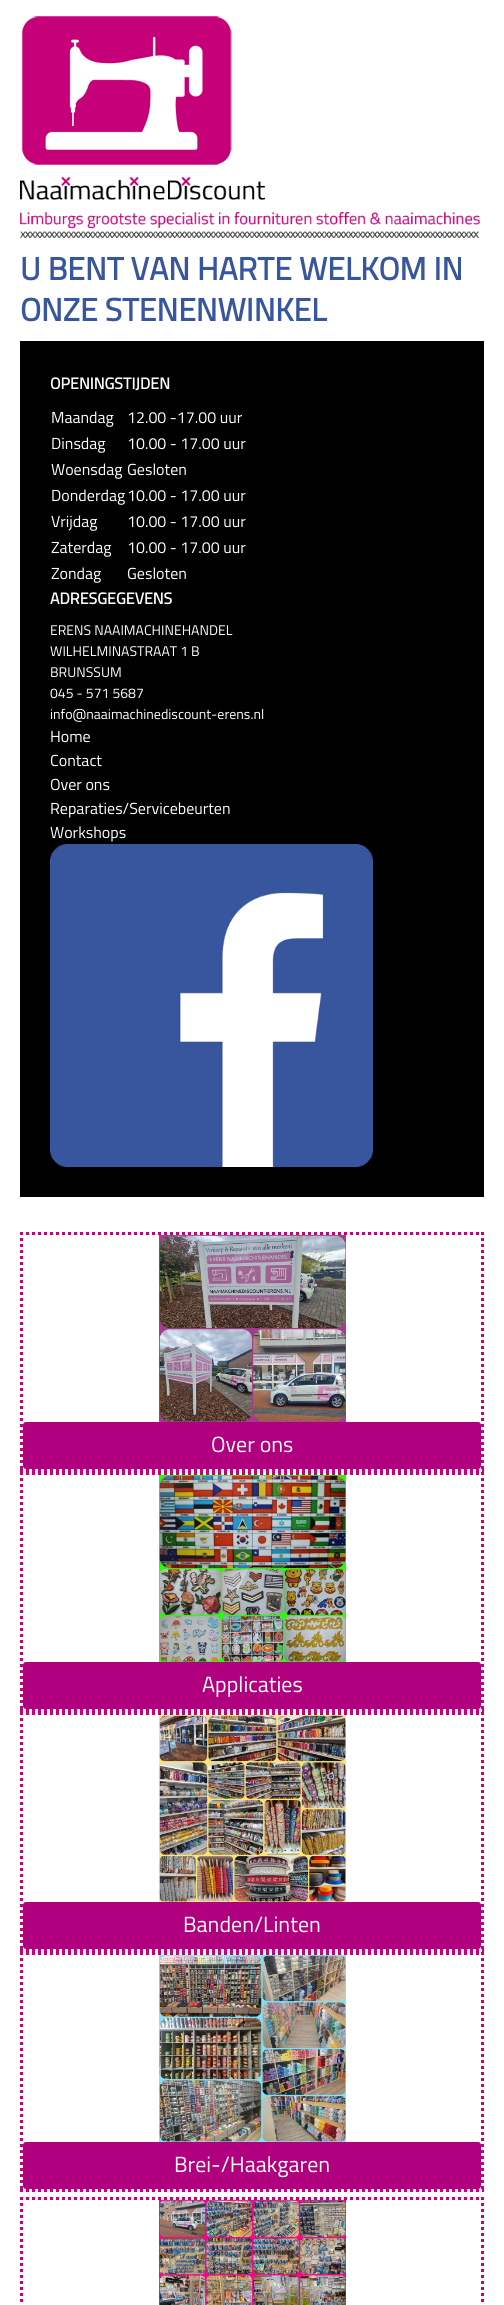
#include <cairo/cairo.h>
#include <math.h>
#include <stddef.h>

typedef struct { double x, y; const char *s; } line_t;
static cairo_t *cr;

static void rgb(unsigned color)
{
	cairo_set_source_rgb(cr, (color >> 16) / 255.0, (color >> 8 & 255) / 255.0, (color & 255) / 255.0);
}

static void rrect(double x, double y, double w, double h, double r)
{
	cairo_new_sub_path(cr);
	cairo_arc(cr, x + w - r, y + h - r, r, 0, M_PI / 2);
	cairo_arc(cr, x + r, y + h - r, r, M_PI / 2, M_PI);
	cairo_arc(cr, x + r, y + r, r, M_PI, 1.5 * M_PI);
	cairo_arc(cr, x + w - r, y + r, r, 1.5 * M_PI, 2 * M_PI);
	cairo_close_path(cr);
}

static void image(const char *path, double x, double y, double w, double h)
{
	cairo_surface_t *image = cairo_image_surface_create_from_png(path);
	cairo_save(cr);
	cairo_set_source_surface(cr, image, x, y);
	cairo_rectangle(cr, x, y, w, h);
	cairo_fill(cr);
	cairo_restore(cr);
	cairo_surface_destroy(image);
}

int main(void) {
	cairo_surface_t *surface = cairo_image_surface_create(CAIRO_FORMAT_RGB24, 504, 2305);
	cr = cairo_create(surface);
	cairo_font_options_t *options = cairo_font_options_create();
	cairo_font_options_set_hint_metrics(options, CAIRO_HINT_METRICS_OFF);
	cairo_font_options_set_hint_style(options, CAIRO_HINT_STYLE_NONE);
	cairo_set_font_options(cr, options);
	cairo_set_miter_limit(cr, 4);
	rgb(0xffffff);
	cairo_paint(cr);
	image("img/1.png", 22, 16, 210, 149);
	image("img/2.png", 20, 176, 461, 62);
	rgb(0x000000);
	cairo_rectangle(cr, 20, 341, 464, 856);
	cairo_fill(cr);
	image("img/3.png", 50, 844, 323, 323);
	cairo_new_path(cr);
	cairo_move_to(cr, 20, 1233.5);
	cairo_line_to(cr, 484, 1233.5);
	rgb(0xc50078);
	cairo_set_line_width(cr, 3);
	cairo_set_dash(cr, (double[]){3, 3}, 2, 0);
	cairo_stroke(cr);
	cairo_new_path(cr);
	cairo_move_to(cr, 482.5, 1232);
	cairo_line_to(cr, 482.5, 1472);
	cairo_stroke(cr);
	cairo_new_path(cr);
	cairo_move_to(cr, 20, 1470.5);
	cairo_line_to(cr, 484, 1470.5);
	cairo_stroke(cr);
	cairo_new_path(cr);
	cairo_move_to(cr, 21.5, 1232);
	cairo_line_to(cr, 21.5, 1472);
	cairo_stroke(cr);
	image("img/4.png", 159, 1235, 187, 187);
	rgb(0xb00080);
	rrect(23, 1422, 458, 47, 3);
	cairo_fill(cr);
	cairo_new_path(cr);
	cairo_move_to(cr, 20, 1473.5);
	cairo_line_to(cr, 484, 1473.5);
	rgb(0xc50078);
	cairo_stroke(cr);
	cairo_new_path(cr);
	cairo_move_to(cr, 482.5, 1472);
	cairo_line_to(cr, 482.5, 1712);
	cairo_stroke(cr);
	cairo_new_path(cr);
	cairo_move_to(cr, 20, 1710.5);
	cairo_line_to(cr, 484, 1710.5);
	cairo_stroke(cr);
	cairo_new_path(cr);
	cairo_move_to(cr, 21.5, 1472);
	cairo_line_to(cr, 21.5, 1712);
	cairo_stroke(cr);
	image("img/5.png", 159, 1475, 187, 187);
	rgb(0xb00080);
	rrect(23, 1662, 458, 47, 3);
	cairo_fill(cr);
	cairo_new_path(cr);
	cairo_move_to(cr, 20, 1713.5);
	cairo_line_to(cr, 484, 1713.5);
	rgb(0xc50078);
	cairo_stroke(cr);
	cairo_new_path(cr);
	cairo_move_to(cr, 482.5, 1712);
	cairo_line_to(cr, 482.5, 1952);
	cairo_stroke(cr);
	cairo_new_path(cr);
	cairo_move_to(cr, 20, 1950.5);
	cairo_line_to(cr, 484, 1950.5);
	cairo_stroke(cr);
	cairo_new_path(cr);
	cairo_move_to(cr, 21.5, 1712);
	cairo_line_to(cr, 21.5, 1952);
	cairo_stroke(cr);
	image("img/6.png", 159, 1715, 187, 187);
	rgb(0xb00080);
	rrect(23, 1902, 458, 47, 3);
	cairo_fill(cr);
	cairo_new_path(cr);
	cairo_move_to(cr, 20, 1953.5);
	cairo_line_to(cr, 484, 1953.5);
	rgb(0xc50078);
	cairo_stroke(cr);
	cairo_new_path(cr);
	cairo_move_to(cr, 482.5, 1952);
	cairo_line_to(cr, 482.5, 2192);
	cairo_stroke(cr);
	cairo_new_path(cr);
	cairo_move_to(cr, 20, 2190.5);
	cairo_line_to(cr, 484, 2190.5);
	cairo_stroke(cr);
	cairo_new_path(cr);
	cairo_move_to(cr, 21.5, 1952);
	cairo_line_to(cr, 21.5, 2192);
	cairo_stroke(cr);
	image("img/7.png", 159, 1955, 187, 187);
	rgb(0xb00080);
	rrect(23, 2142, 458, 47, 3);
	cairo_fill(cr);
	cairo_new_path(cr);
	cairo_move_to(cr, 20, 2198.5);
	cairo_line_to(cr, 484, 2198.5);
	rgb(0xc50078);
	cairo_stroke(cr);
	cairo_new_path(cr);
	cairo_move_to(cr, 482.5, 2197);
	cairo_line_to(cr, 482.5, 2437);
	cairo_stroke(cr);
	cairo_new_path(cr);
	cairo_move_to(cr, 21.5, 2197);
	cairo_line_to(cr, 21.5, 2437);
	cairo_stroke(cr);
	image("img/8.png", 159, 2200, 187, 105);
	cairo_select_font_face(cr, "Titillium Web", CAIRO_FONT_SLANT_NORMAL, CAIRO_FONT_WEIGHT_BOLD);
	cairo_set_font_size(cr, 32);
	rgb(0x38569e);
	cairo_move_to(cr, 20, 280);
	cairo_show_text(cr, "U BENT VAN HARTE WELKOM IN");
	cairo_move_to(cr, 20, 321);
	cairo_show_text(cr, "ONZE STENENWINKEL");
	cairo_set_font_size(cr, 16);
	rgb(0xffffff);
	cairo_move_to(cr, 50, 389);
	cairo_show_text(cr, "OPENINGSTIJDEN");
	cairo_select_font_face(cr, "Titillium Web", CAIRO_FONT_SLANT_NORMAL, CAIRO_FONT_WEIGHT_NORMAL);
	{
		static const line_t items[] = {
			{51, 423, "Maandag"},
			{127, 423, "12.00 -17.00 uur"},
			{51, 449, "Dinsdag"},
			{127, 449, "10.00 - 17.00 uur"},
			{51, 475, "Woensdag"},
			{127, 475, "Gesloten"},
			{51, 501, "Donderdag"},
			{127, 501, "10.00 - 17.00 uur"},
			{51, 527, "Vrijdag"},
			{127, 527, "10.00 - 17.00 uur"},
			{51, 553, "Zaterdag"},
			{127, 553, "10.00 - 17.00 uur"},
			{51, 579, "Zondag"},
			{127, 579, "Gesloten"},
		};
		for (size_t i = 0; i < sizeof items / sizeof *items; i++) {
			cairo_move_to(cr, items[i].x, items[i].y);
			cairo_show_text(cr, items[i].s);
		}
	}
	cairo_select_font_face(cr, "Titillium Web", CAIRO_FONT_SLANT_NORMAL, CAIRO_FONT_WEIGHT_BOLD);
	cairo_move_to(cr, 50, 604);
	cairo_show_text(cr, "ADRESGEGEVENS");
	cairo_select_font_face(cr, "Titillium Web", CAIRO_FONT_SLANT_NORMAL, CAIRO_FONT_WEIGHT_NORMAL);
	cairo_set_font_size(cr, 14);
	{
		static const line_t items[] = {
			{50, 635, "ERENS NAAIMACHINEHANDEL"},
			{50, 656, "WILHELMINASTRAAT 1 B"},
			{50, 677, "BRUNSSUM"},
			{50, 698, "045 - 571 5687"},
			{50, 719, "info@naaimachinediscount-erens.nl"},
		};
		for (size_t i = 0; i < sizeof items / sizeof *items; i++) {
			cairo_move_to(cr, items[i].x, items[i].y);
			cairo_show_text(cr, items[i].s);
		}
	}
	cairo_set_font_size(cr, 16);
	{
		static const line_t items[] = {
			{50, 742, "Home"},
			{50, 766, "Contact"},
			{50, 790, "Over ons"},
			{50, 814, "Reparaties/Servicebeurten"},
			{50, 838, "Workshops"},
		};
		for (size_t i = 0; i < sizeof items / sizeof *items; i++) {
			cairo_move_to(cr, items[i].x, items[i].y);
			cairo_show_text(cr, items[i].s);
		}
	}
	cairo_set_font_size(cr, 22);
	{
		static const line_t items[] = {
			{211, 1452, "Over ons"},
			{202, 1692, "Applicaties"},
			{183, 1932, "Banden/Linten"},
			{174, 2172, "Brei-/Haakgaren"},
		};
		for (size_t i = 0; i < sizeof items / sizeof *items; i++) {
			cairo_move_to(cr, items[i].x, items[i].y);
			cairo_show_text(cr, items[i].s);
		}
	}
	cairo_surface_write_to_png(surface, "page.png");
	cairo_font_options_destroy(options);
	cairo_destroy(cr);
	cairo_surface_destroy(surface);
	return 0;
}
